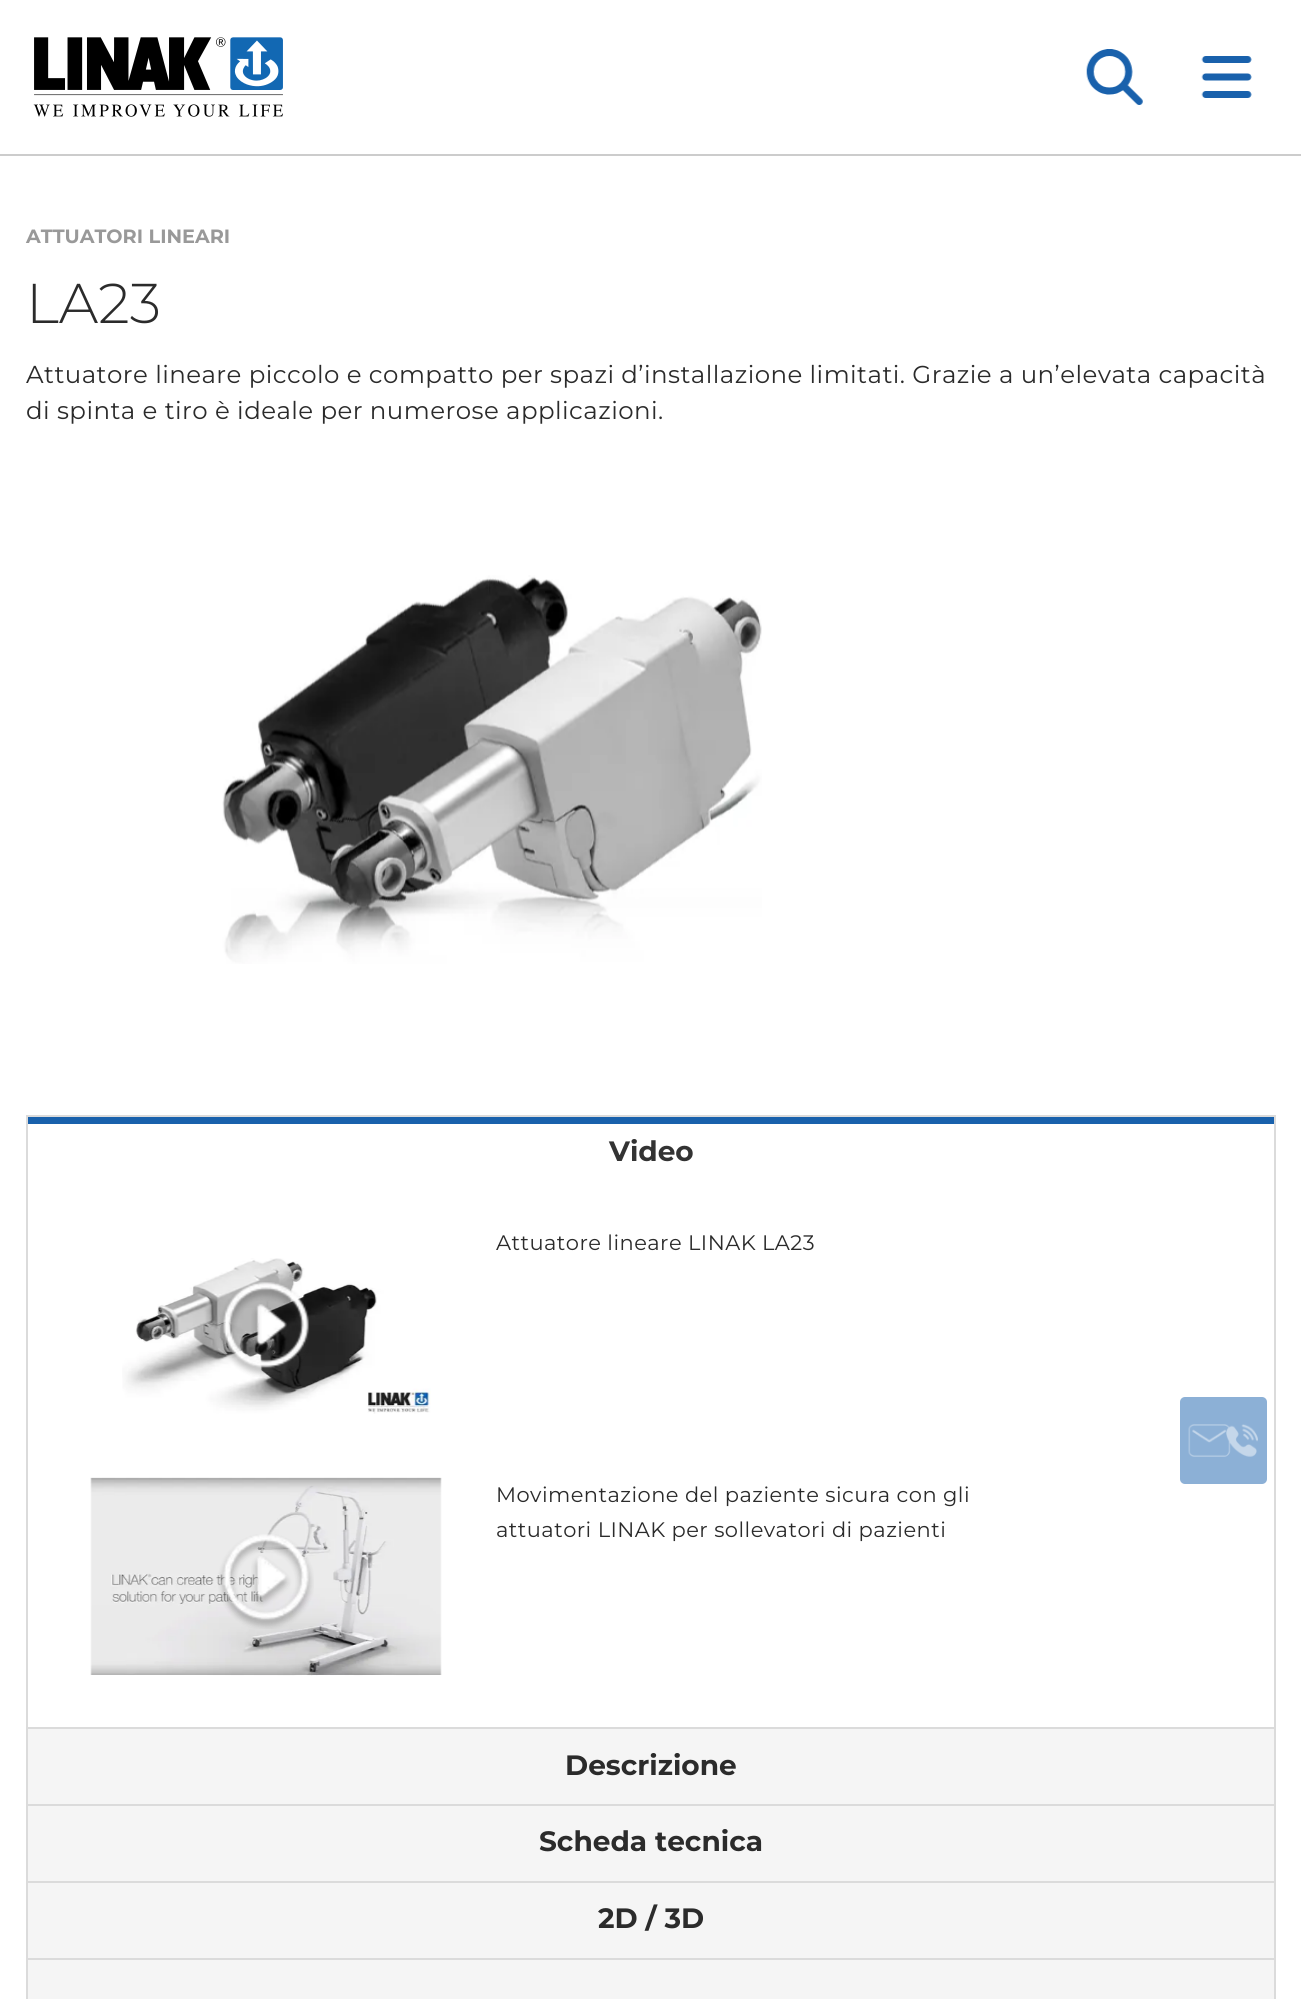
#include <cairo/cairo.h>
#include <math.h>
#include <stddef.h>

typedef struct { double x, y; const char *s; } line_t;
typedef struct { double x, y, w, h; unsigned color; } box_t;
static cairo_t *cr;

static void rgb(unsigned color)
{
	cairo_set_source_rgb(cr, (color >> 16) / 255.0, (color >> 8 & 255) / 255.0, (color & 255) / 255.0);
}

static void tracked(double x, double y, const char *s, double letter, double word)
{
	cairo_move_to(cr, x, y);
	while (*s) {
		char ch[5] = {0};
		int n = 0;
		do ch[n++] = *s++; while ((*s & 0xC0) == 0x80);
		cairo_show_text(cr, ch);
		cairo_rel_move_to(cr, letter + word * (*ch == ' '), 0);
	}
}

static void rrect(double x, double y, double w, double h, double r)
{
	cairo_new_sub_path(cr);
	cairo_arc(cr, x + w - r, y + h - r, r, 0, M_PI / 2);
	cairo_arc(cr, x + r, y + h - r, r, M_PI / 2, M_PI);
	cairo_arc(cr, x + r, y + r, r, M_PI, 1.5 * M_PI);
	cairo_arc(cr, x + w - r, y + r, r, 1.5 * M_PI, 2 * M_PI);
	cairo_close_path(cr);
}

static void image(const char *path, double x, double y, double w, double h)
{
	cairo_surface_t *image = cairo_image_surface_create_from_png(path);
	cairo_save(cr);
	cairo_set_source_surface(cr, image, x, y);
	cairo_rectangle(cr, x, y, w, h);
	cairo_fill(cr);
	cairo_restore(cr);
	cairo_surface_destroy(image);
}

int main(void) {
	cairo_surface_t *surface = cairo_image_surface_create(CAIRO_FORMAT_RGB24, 1301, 1999);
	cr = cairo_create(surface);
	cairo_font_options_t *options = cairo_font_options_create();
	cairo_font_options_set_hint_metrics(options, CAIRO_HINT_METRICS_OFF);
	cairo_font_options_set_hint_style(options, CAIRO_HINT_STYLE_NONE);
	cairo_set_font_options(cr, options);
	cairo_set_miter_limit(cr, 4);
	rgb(0xffffff);
	cairo_paint(cr);
	rgb(0xcccccc);
	cairo_rectangle(cr, 0, 154, 1301, 2);
	cairo_fill(cr);
	image("img/1.png", 33, 37, 250, 80);
	image("img/2.png", 1086, 49, 57, 56);
	image("img/3.png", 1201, 56, 51, 42);
	image("img/4.png", 222, 575, 540, 389);
	cairo_rectangle(cr, 27, 1116, 1248, 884);
	rgb(0xdbdbdb);
	cairo_stroke(cr);
	rgb(0x1961ac);
	cairo_rectangle(cr, 28, 1117, 1246, 7);
	cairo_fill(cr);
	image("img/5.png", 122, 1258, 309, 156);
	image("img/6.png", 218, 1282, 91, 95);
	image("img/7.png", 90, 1477, 352, 199);
	image("img/8.png", 218, 1534, 96, 95);
	{
		static const box_t items[] = {
			{28, 1729, 1246, 75, 0xf5f5f5},
			{28, 1727, 1246, 2, 0xdbdbdb},
			{28, 1806, 1246, 75, 0xf5f5f5},
			{28, 1804, 1246, 2, 0xdbdbdb},
			{28, 1883, 1246, 75, 0xf5f5f5},
			{28, 1881, 1246, 2, 0xdbdbdb},
			{28, 1960, 1246, 39, 0xf5f5f5},
			{28, 1958, 1246, 2, 0xdbdbdb},
		};
		for (size_t i = 0; i < sizeof items / sizeof *items; i++) {
			rgb(items[i].color);
			cairo_rectangle(cr, items[i].x, items[i].y, items[i].w, items[i].h);
			cairo_fill(cr);
		}
	}
	rgb(0x8cb0d6);
	rrect(1180, 1397, 87, 87, 5);
	cairo_fill(cr);
	image("img/9.png", 1188, 1424, 70, 33);
	cairo_select_font_face(cr, "Montserrat Thin", CAIRO_FONT_SLANT_NORMAL, CAIRO_FONT_WEIGHT_NORMAL);
	cairo_set_font_size(cr, 19.25);
	rgb(0x999999);
	cairo_move_to(cr, 26, 243);
	cairo_show_text(cr, "ATTUATORI LINEARI");
	cairo_select_font_face(cr, "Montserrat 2 Thin", CAIRO_FONT_SLANT_NORMAL, CAIRO_FONT_WEIGHT_NORMAL);
	cairo_set_font_size(cr, 56);
	rgb(0x2b2b2b);
	cairo_move_to(cr, 26, 323);
	cairo_show_text(cr, "LA23");
	cairo_select_font_face(cr, "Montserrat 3 Thin", CAIRO_FONT_SLANT_NORMAL, CAIRO_FONT_WEIGHT_NORMAL);
	cairo_set_font_size(cr, 24.5);
	tracked(26, 383, "Attuatore lineare piccolo e compatto per spazi d’installazione limitati. Grazie a un’elevata capacità", 0.44, 0);
	tracked(26, 419, "di spinta e tiro è ideale per numerose applicazioni.", 0.44, 0);
	cairo_select_font_face(cr, "Montserrat Thin", CAIRO_FONT_SLANT_NORMAL, CAIRO_FONT_WEIGHT_NORMAL);
	cairo_set_font_size(cr, 28);
	rgb(0x333333);
	cairo_move_to(cr, 609, 1161);
	cairo_show_text(cr, "Video");
	cairo_select_font_face(cr, "Montserrat 3 Thin", CAIRO_FONT_SLANT_NORMAL, CAIRO_FONT_WEIGHT_NORMAL);
	cairo_set_font_size(cr, 21);
	rgb(0x2b2b2b);
	{
		static const line_t items[] = {
			{496, 1250, "Attuatore lineare LINAK LA23"},
			{496, 1502, "Movimentazione del paziente sicura con gli"},
			{496, 1537, "attuatori LINAK per sollevatori di pazienti"},
		};
		for (size_t i = 0; i < sizeof items / sizeof *items; i++) {
			tracked(items[i].x, items[i].y, items[i].s, 0.44, 0);
		}
	}
	cairo_select_font_face(cr, "Montserrat Thin", CAIRO_FONT_SLANT_NORMAL, CAIRO_FONT_WEIGHT_NORMAL);
	cairo_set_font_size(cr, 28);
	{
		static const line_t items[] = {
			{565, 1775, "Descrizione"},
			{539, 1851, "Scheda tecnica"},
			{598, 1928, "2D / 3D"},
		};
		for (size_t i = 0; i < sizeof items / sizeof *items; i++) {
			cairo_move_to(cr, items[i].x, items[i].y);
			cairo_show_text(cr, items[i].s);
		}
	}
	cairo_surface_write_to_png(surface, "page.png");
	cairo_font_options_destroy(options);
	cairo_destroy(cr);
	cairo_surface_destroy(surface);
	return 0;
}
